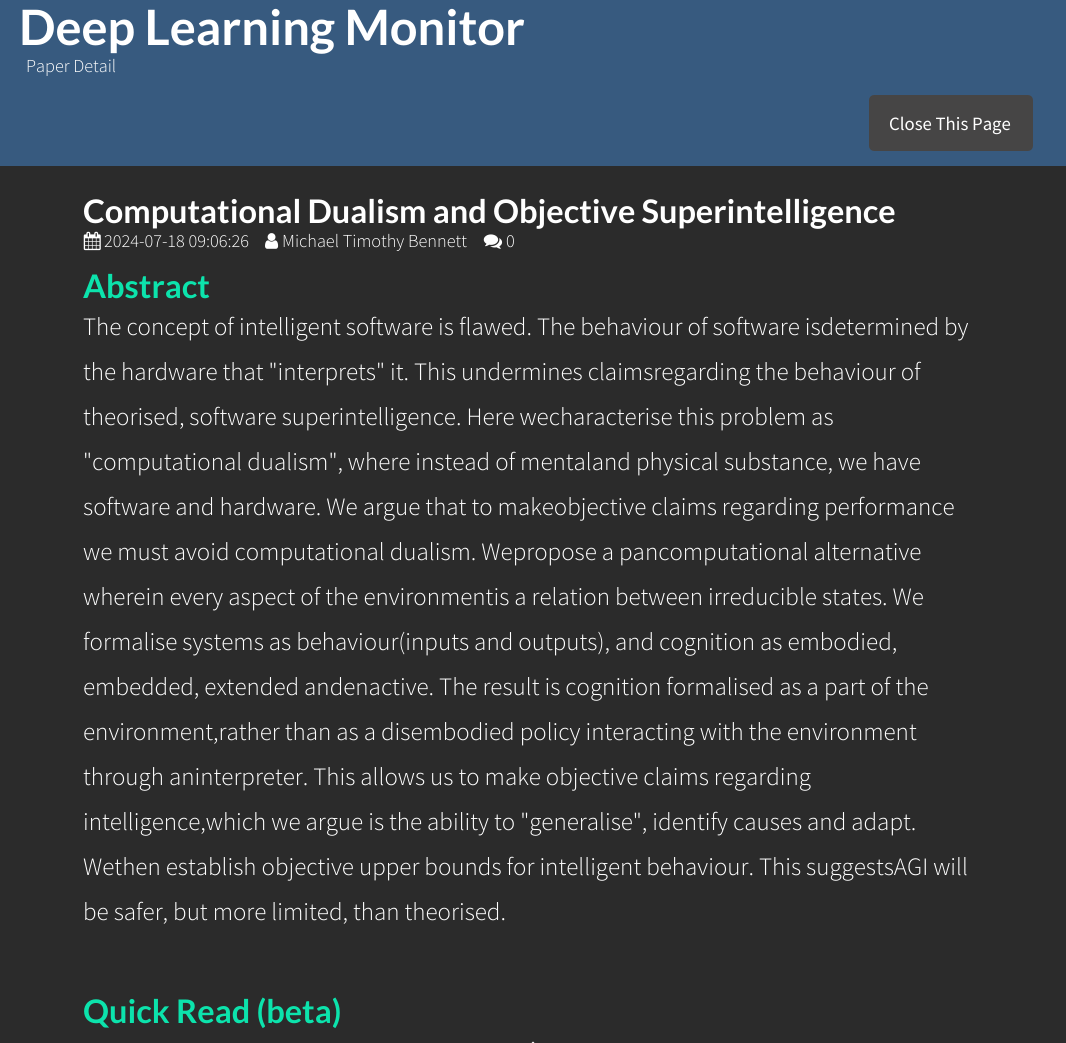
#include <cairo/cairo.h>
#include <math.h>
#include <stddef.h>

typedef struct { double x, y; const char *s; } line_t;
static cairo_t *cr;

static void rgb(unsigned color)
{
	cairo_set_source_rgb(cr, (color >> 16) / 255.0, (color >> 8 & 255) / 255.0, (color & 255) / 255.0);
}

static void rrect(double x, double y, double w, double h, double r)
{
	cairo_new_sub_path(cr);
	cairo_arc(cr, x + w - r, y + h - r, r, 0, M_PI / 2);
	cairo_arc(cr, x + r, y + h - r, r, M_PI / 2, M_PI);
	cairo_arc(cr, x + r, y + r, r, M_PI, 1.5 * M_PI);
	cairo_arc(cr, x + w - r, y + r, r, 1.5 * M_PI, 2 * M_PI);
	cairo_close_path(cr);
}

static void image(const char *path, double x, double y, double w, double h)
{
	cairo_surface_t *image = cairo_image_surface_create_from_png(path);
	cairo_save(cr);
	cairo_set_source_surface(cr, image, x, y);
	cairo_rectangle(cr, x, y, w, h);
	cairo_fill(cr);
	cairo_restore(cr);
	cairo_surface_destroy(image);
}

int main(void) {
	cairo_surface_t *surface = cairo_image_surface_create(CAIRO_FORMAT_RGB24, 1066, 1043);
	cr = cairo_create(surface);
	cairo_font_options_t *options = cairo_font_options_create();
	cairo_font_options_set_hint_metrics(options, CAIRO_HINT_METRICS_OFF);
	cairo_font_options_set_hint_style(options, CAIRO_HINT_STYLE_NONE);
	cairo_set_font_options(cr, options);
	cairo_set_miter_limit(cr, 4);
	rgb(0x2b2b2b);
	cairo_paint(cr);
	rgb(0x375a7f);
	cairo_rectangle(cr, 0, 0, 1066, 166);
	cairo_fill(cr);
	rgb(0x464545);
	rrect(870.5, 96.5, 161, 53, 3.5);
	cairo_fill_preserve(cr);
	cairo_set_line_width(cr, 3);
	cairo_stroke(cr);
	image("img/1.png", 83, 231, 18, 20);
	image("img/2.png", 265, 233, 14, 16);
	image("img/3.png", 483, 234, 20, 15);
	rgb(0xffffff);
	cairo_new_path(cr);
	cairo_move_to(cr, 533, 1041.5);
	cairo_line_to(cr, 552.5, 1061);
	cairo_line_to(cr, 533, 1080.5);
	cairo_line_to(cr, 513.5, 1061);
	cairo_close_path(cr);
	cairo_fill(cr);
	cairo_select_font_face(cr, "Lato", CAIRO_FONT_SLANT_NORMAL, CAIRO_FONT_WEIGHT_BOLD);
	cairo_set_font_size(cr, 48.75);
	cairo_move_to(cr, 19, 45);
	cairo_show_text(cr, "Deep Learning Monitor");
	cairo_select_font_face(cr, "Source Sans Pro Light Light", CAIRO_FONT_SLANT_NORMAL, CAIRO_FONT_WEIGHT_NORMAL);
	cairo_set_font_size(cr, 18.25);
	cairo_move_to(cr, 26, 72);
	cairo_show_text(cr, "Paper Detail");
	cairo_select_font_face(cr, "Source Sans Pro", CAIRO_FONT_SLANT_NORMAL, CAIRO_FONT_WEIGHT_NORMAL);
	cairo_set_font_size(cr, 18.75);
	cairo_move_to(cr, 889, 130);
	cairo_show_text(cr, "Close This Page");
	cairo_select_font_face(cr, "Lato", CAIRO_FONT_SLANT_NORMAL, CAIRO_FONT_WEIGHT_BOLD);
	cairo_set_font_size(cr, 32.5);
	cairo_move_to(cr, 83, 223);
	cairo_show_text(cr, "Computational Dualism and Objective Superintelligence");
	cairo_select_font_face(cr, "Source Sans Pro Light Light", CAIRO_FONT_SLANT_NORMAL, CAIRO_FONT_WEIGHT_NORMAL);
	cairo_set_font_size(cr, 18.25);
	{
		static const line_t items[] = {
			{104, 247, "2024-07-18 09:06:26"},
			{282, 247, "Michael Timothy Bennett"},
			{506, 247, "0"},
		};
		for (size_t i = 0; i < sizeof items / sizeof *items; i++) {
			cairo_move_to(cr, items[i].x, items[i].y);
			cairo_show_text(cr, items[i].s);
		}
	}
	cairo_select_font_face(cr, "Lato", CAIRO_FONT_SLANT_NORMAL, CAIRO_FONT_WEIGHT_BOLD);
	cairo_set_font_size(cr, 32.5);
	rgb(0x0ce3ac);
	cairo_move_to(cr, 83, 298);
	cairo_show_text(cr, "Abstract");
	cairo_select_font_face(cr, "Source Sans Pro Light Light", CAIRO_FONT_SLANT_NORMAL, CAIRO_FONT_WEIGHT_NORMAL);
	cairo_set_font_size(cr, 25);
	rgb(0xffffff);
	{
		static const line_t items[] = {
			{83, 335, "The concept of intelligent software is flawed. The behaviour of software isdetermined by"},
			{83, 380, "the hardware that \"interprets\" it. This undermines claimsregarding the behaviour of"},
			{83, 425, "theorised, software superintelligence. Here wecharacterise this problem as"},
			{83, 470, "\"computational dualism\", where instead of mentaland physical substance, we have"},
			{83, 515, "software and hardware. We argue that to makeobjective claims regarding performance"},
			{83, 560, "we must avoid computational dualism. Wepropose a pancomputational alternative"},
			{83, 605, "wherein every aspect of the environmentis a relation between irreducible states. We"},
			{83, 650, "formalise systems as behaviour(inputs and outputs), and cognition as embodied,"},
			{83, 695, "embedded, extended andenactive. The result is cognition formalised as a part of the"},
			{83, 740, "environment,rather than as a disembodied policy interacting with the environment"},
			{83, 785, "through aninterpreter. This allows us to make objective claims regarding"},
			{83, 830, "intelligence,which we argue is the ability to \"generalise\", identify causes and adapt."},
			{83, 875, "Wethen establish objective upper bounds for intelligent behaviour. This suggestsAGI will"},
			{83, 920, "be safer, but more limited, than theorised."},
		};
		for (size_t i = 0; i < sizeof items / sizeof *items; i++) {
			cairo_move_to(cr, items[i].x, items[i].y);
			cairo_show_text(cr, items[i].s);
		}
	}
	cairo_select_font_face(cr, "Lato", CAIRO_FONT_SLANT_NORMAL, CAIRO_FONT_WEIGHT_BOLD);
	cairo_set_font_size(cr, 32.5);
	rgb(0x0ce3ac);
	cairo_move_to(cr, 83, 1023);
	cairo_show_text(cr, "Quick Read (beta)");
	cairo_surface_write_to_png(surface, "page.png");
	cairo_font_options_destroy(options);
	cairo_destroy(cr);
	cairo_surface_destroy(surface);
	return 0;
}
